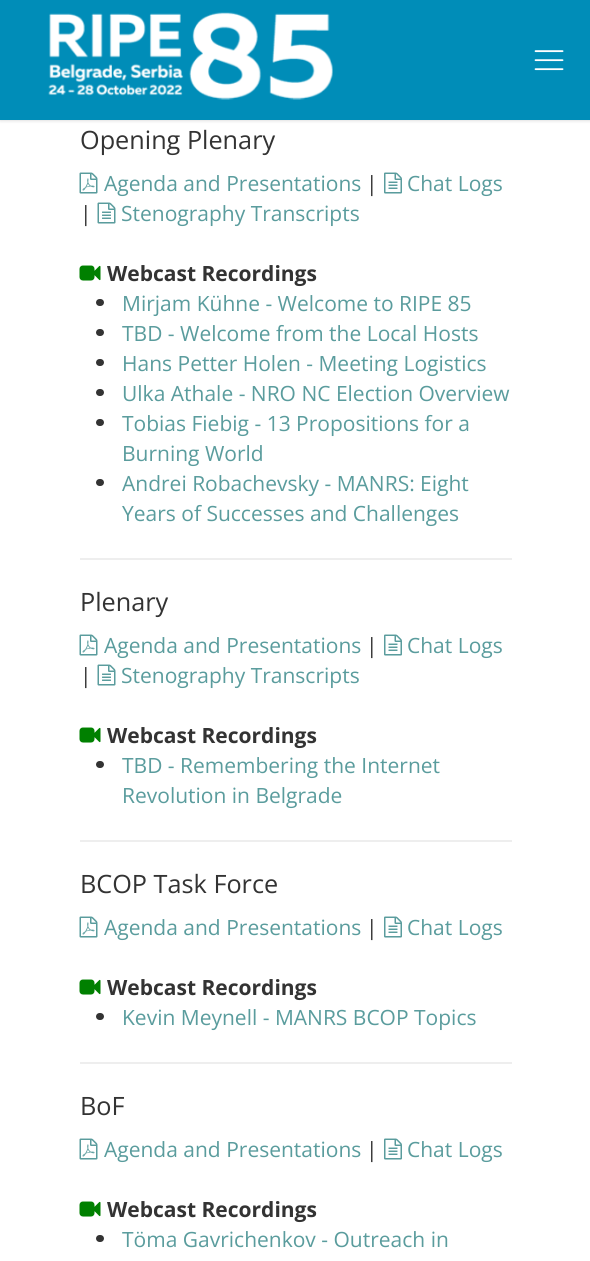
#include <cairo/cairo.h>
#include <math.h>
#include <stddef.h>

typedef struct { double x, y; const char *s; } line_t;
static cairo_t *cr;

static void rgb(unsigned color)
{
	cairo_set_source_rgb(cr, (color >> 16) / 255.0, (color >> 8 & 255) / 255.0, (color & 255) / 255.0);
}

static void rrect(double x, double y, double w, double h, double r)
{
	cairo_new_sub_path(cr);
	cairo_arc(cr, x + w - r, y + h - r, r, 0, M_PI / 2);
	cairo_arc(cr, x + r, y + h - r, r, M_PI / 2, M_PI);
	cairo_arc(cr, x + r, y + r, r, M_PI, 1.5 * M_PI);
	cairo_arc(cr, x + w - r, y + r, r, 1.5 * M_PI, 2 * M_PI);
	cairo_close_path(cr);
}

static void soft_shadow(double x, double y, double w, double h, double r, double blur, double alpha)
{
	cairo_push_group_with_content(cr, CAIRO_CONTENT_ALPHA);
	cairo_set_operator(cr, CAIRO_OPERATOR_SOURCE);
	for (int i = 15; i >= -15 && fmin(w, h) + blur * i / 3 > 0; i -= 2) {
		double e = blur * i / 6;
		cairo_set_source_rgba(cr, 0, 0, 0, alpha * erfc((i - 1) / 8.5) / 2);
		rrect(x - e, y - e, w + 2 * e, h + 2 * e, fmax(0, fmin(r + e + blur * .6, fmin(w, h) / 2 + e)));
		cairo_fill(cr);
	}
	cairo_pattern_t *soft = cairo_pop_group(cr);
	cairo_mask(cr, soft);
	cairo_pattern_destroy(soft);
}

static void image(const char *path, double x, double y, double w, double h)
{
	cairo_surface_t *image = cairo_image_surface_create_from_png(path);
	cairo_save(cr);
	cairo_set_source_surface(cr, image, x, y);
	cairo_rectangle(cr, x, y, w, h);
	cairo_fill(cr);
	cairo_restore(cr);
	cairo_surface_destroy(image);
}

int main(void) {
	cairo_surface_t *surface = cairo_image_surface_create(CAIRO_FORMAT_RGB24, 590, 1261);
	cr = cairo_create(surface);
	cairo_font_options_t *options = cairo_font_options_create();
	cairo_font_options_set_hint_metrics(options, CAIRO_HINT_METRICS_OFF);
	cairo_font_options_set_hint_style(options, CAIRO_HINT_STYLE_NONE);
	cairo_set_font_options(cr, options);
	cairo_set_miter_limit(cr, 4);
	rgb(0xffffff);
	cairo_paint(cr);
	rgb(0x000000);
	soft_shadow(0, 0, 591, 120, 0, 2, 0.2);
	rgb(0x008db8);
	cairo_rectangle(cr, 0, 0, 590, 120);
	cairo_fill(cr);
	image("img/1.png", 48, 12, 285, 88);
	image("img/2.png", 534, 50, 30, 21);
	image("img/3.png", 79, 172, 19, 22);
	image("img/4.png", 384, 172, 18, 22);
	image("img/5.png", 97, 202, 19, 22);
	image("img/6.png", 79, 265, 22, 16);
	rgb(0x333333);
	rrect(96, 299, 8, 7, 3.5);
	cairo_fill(cr);
	rrect(96, 329, 8, 7, 3.5);
	cairo_fill(cr);
	rrect(96, 359, 8, 7, 3.5);
	cairo_fill(cr);
	rrect(96, 389, 8, 7, 3.5);
	cairo_fill(cr);
	rrect(96, 419, 8, 7, 3.5);
	cairo_fill(cr);
	rrect(96, 479, 8, 7, 3.5);
	cairo_fill(cr);
	rgb(0xeeeeee);
	cairo_rectangle(cr, 80, 558, 432, 2);
	cairo_fill(cr);
	image("img/3.png", 79, 634, 19, 22);
	image("img/4.png", 384, 634, 18, 22);
	image("img/5.png", 97, 664, 19, 22);
	image("img/6.png", 79, 727, 22, 16);
	rgb(0x333333);
	rrect(96, 761, 8, 7, 3.5);
	cairo_fill(cr);
	rgb(0xeeeeee);
	cairo_rectangle(cr, 80, 840, 432, 2);
	cairo_fill(cr);
	image("img/3.png", 79, 916, 19, 22);
	image("img/4.png", 384, 916, 18, 22);
	image("img/6.png", 79, 979, 22, 16);
	rgb(0x333333);
	rrect(96, 1013, 8, 7, 3.5);
	cairo_fill(cr);
	rgb(0xeeeeee);
	cairo_rectangle(cr, 80, 1062, 432, 2);
	cairo_fill(cr);
	image("img/3.png", 79, 1138, 19, 22);
	image("img/4.png", 384, 1138, 18, 22);
	image("img/6.png", 79, 1201, 22, 16);
	rgb(0x333333);
	rrect(96, 1235, 8, 7, 3.5);
	cairo_fill(cr);
	cairo_select_font_face(cr, "Open Sans", CAIRO_FONT_SLANT_NORMAL, CAIRO_FONT_WEIGHT_NORMAL);
	cairo_set_font_size(cr, 25.25);
	cairo_move_to(cr, 80, 149);
	cairo_show_text(cr, "Opening Plenary");
	cairo_set_font_size(cr, 21);
	rgb(0x5a9c9d);
	cairo_move_to(cr, 104, 191);
	cairo_show_text(cr, "Agenda and Presentations");
	rgb(0x333333);
	cairo_move_to(cr, 366, 191);
	cairo_show_text(cr, "|");
	rgb(0x5a9c9d);
	cairo_move_to(cr, 407, 191);
	cairo_show_text(cr, "Chat Logs");
	rgb(0x333333);
	cairo_move_to(cr, 80, 221);
	cairo_show_text(cr, "|");
	rgb(0x5a9c9d);
	cairo_move_to(cr, 121, 221);
	cairo_show_text(cr, "Stenography Transcripts");
	cairo_select_font_face(cr, "Open Sans", CAIRO_FONT_SLANT_NORMAL, CAIRO_FONT_WEIGHT_BOLD);
	rgb(0x333333);
	cairo_move_to(cr, 107, 281);
	cairo_show_text(cr, "Webcast Recordings");
	cairo_select_font_face(cr, "Open Sans", CAIRO_FONT_SLANT_NORMAL, CAIRO_FONT_WEIGHT_NORMAL);
	rgb(0x5a9c9d);
	{
		static const line_t items[] = {
			{122, 311, "Mirjam Kühne - Welcome to RIPE 85"},
			{122, 341, "TBD - Welcome from the Local Hosts"},
			{122, 371, "Hans Petter Holen - Meeting Logistics"},
			{122, 401, "Ulka Athale - NRO NC Election Overview"},
			{122, 431, "Tobias Fiebig - 13 Propositions for a"},
			{122, 461, "Burning World"},
			{122, 491, "Andrei Robachevsky - MANRS: Eight"},
			{122, 521, "Years of Successes and Challenges"},
		};
		for (size_t i = 0; i < sizeof items / sizeof *items; i++) {
			cairo_move_to(cr, items[i].x, items[i].y);
			cairo_show_text(cr, items[i].s);
		}
	}
	cairo_set_font_size(cr, 25.25);
	rgb(0x333333);
	cairo_move_to(cr, 80, 611);
	cairo_show_text(cr, "Plenary");
	cairo_set_font_size(cr, 21);
	rgb(0x5a9c9d);
	cairo_move_to(cr, 104, 653);
	cairo_show_text(cr, "Agenda and Presentations");
	rgb(0x333333);
	cairo_move_to(cr, 366, 653);
	cairo_show_text(cr, "|");
	rgb(0x5a9c9d);
	cairo_move_to(cr, 407, 653);
	cairo_show_text(cr, "Chat Logs");
	rgb(0x333333);
	cairo_move_to(cr, 80, 683);
	cairo_show_text(cr, "|");
	rgb(0x5a9c9d);
	cairo_move_to(cr, 121, 683);
	cairo_show_text(cr, "Stenography Transcripts");
	cairo_select_font_face(cr, "Open Sans", CAIRO_FONT_SLANT_NORMAL, CAIRO_FONT_WEIGHT_BOLD);
	rgb(0x333333);
	cairo_move_to(cr, 107, 743);
	cairo_show_text(cr, "Webcast Recordings");
	cairo_select_font_face(cr, "Open Sans", CAIRO_FONT_SLANT_NORMAL, CAIRO_FONT_WEIGHT_NORMAL);
	rgb(0x5a9c9d);
	cairo_move_to(cr, 122, 773);
	cairo_show_text(cr, "TBD - Remembering the Internet");
	cairo_move_to(cr, 122, 803);
	cairo_show_text(cr, "Revolution in Belgrade");
	cairo_set_font_size(cr, 25.25);
	rgb(0x333333);
	cairo_move_to(cr, 80, 893);
	cairo_show_text(cr, "BCOP Task Force");
	cairo_set_font_size(cr, 21);
	rgb(0x5a9c9d);
	cairo_move_to(cr, 104, 935);
	cairo_show_text(cr, "Agenda and Presentations");
	rgb(0x333333);
	cairo_move_to(cr, 366, 935);
	cairo_show_text(cr, "|");
	rgb(0x5a9c9d);
	cairo_move_to(cr, 407, 935);
	cairo_show_text(cr, "Chat Logs");
	cairo_select_font_face(cr, "Open Sans", CAIRO_FONT_SLANT_NORMAL, CAIRO_FONT_WEIGHT_BOLD);
	rgb(0x333333);
	cairo_move_to(cr, 107, 995);
	cairo_show_text(cr, "Webcast Recordings");
	cairo_select_font_face(cr, "Open Sans", CAIRO_FONT_SLANT_NORMAL, CAIRO_FONT_WEIGHT_NORMAL);
	rgb(0x5a9c9d);
	cairo_move_to(cr, 122, 1025);
	cairo_show_text(cr, "Kevin Meynell - MANRS BCOP Topics");
	cairo_set_font_size(cr, 25.25);
	rgb(0x333333);
	cairo_move_to(cr, 80, 1115);
	cairo_show_text(cr, "BoF");
	cairo_set_font_size(cr, 21);
	rgb(0x5a9c9d);
	cairo_move_to(cr, 104, 1157);
	cairo_show_text(cr, "Agenda and Presentations");
	rgb(0x333333);
	cairo_move_to(cr, 366, 1157);
	cairo_show_text(cr, "|");
	rgb(0x5a9c9d);
	cairo_move_to(cr, 407, 1157);
	cairo_show_text(cr, "Chat Logs");
	cairo_select_font_face(cr, "Open Sans", CAIRO_FONT_SLANT_NORMAL, CAIRO_FONT_WEIGHT_BOLD);
	rgb(0x333333);
	cairo_move_to(cr, 107, 1217);
	cairo_show_text(cr, "Webcast Recordings");
	cairo_select_font_face(cr, "Open Sans", CAIRO_FONT_SLANT_NORMAL, CAIRO_FONT_WEIGHT_NORMAL);
	rgb(0x5a9c9d);
	cairo_move_to(cr, 122, 1247);
	cairo_show_text(cr, "Töma Gavrichenkov - Outreach in");
	cairo_surface_write_to_png(surface, "page.png");
	cairo_font_options_destroy(options);
	cairo_destroy(cr);
	cairo_surface_destroy(surface);
	return 0;
}
